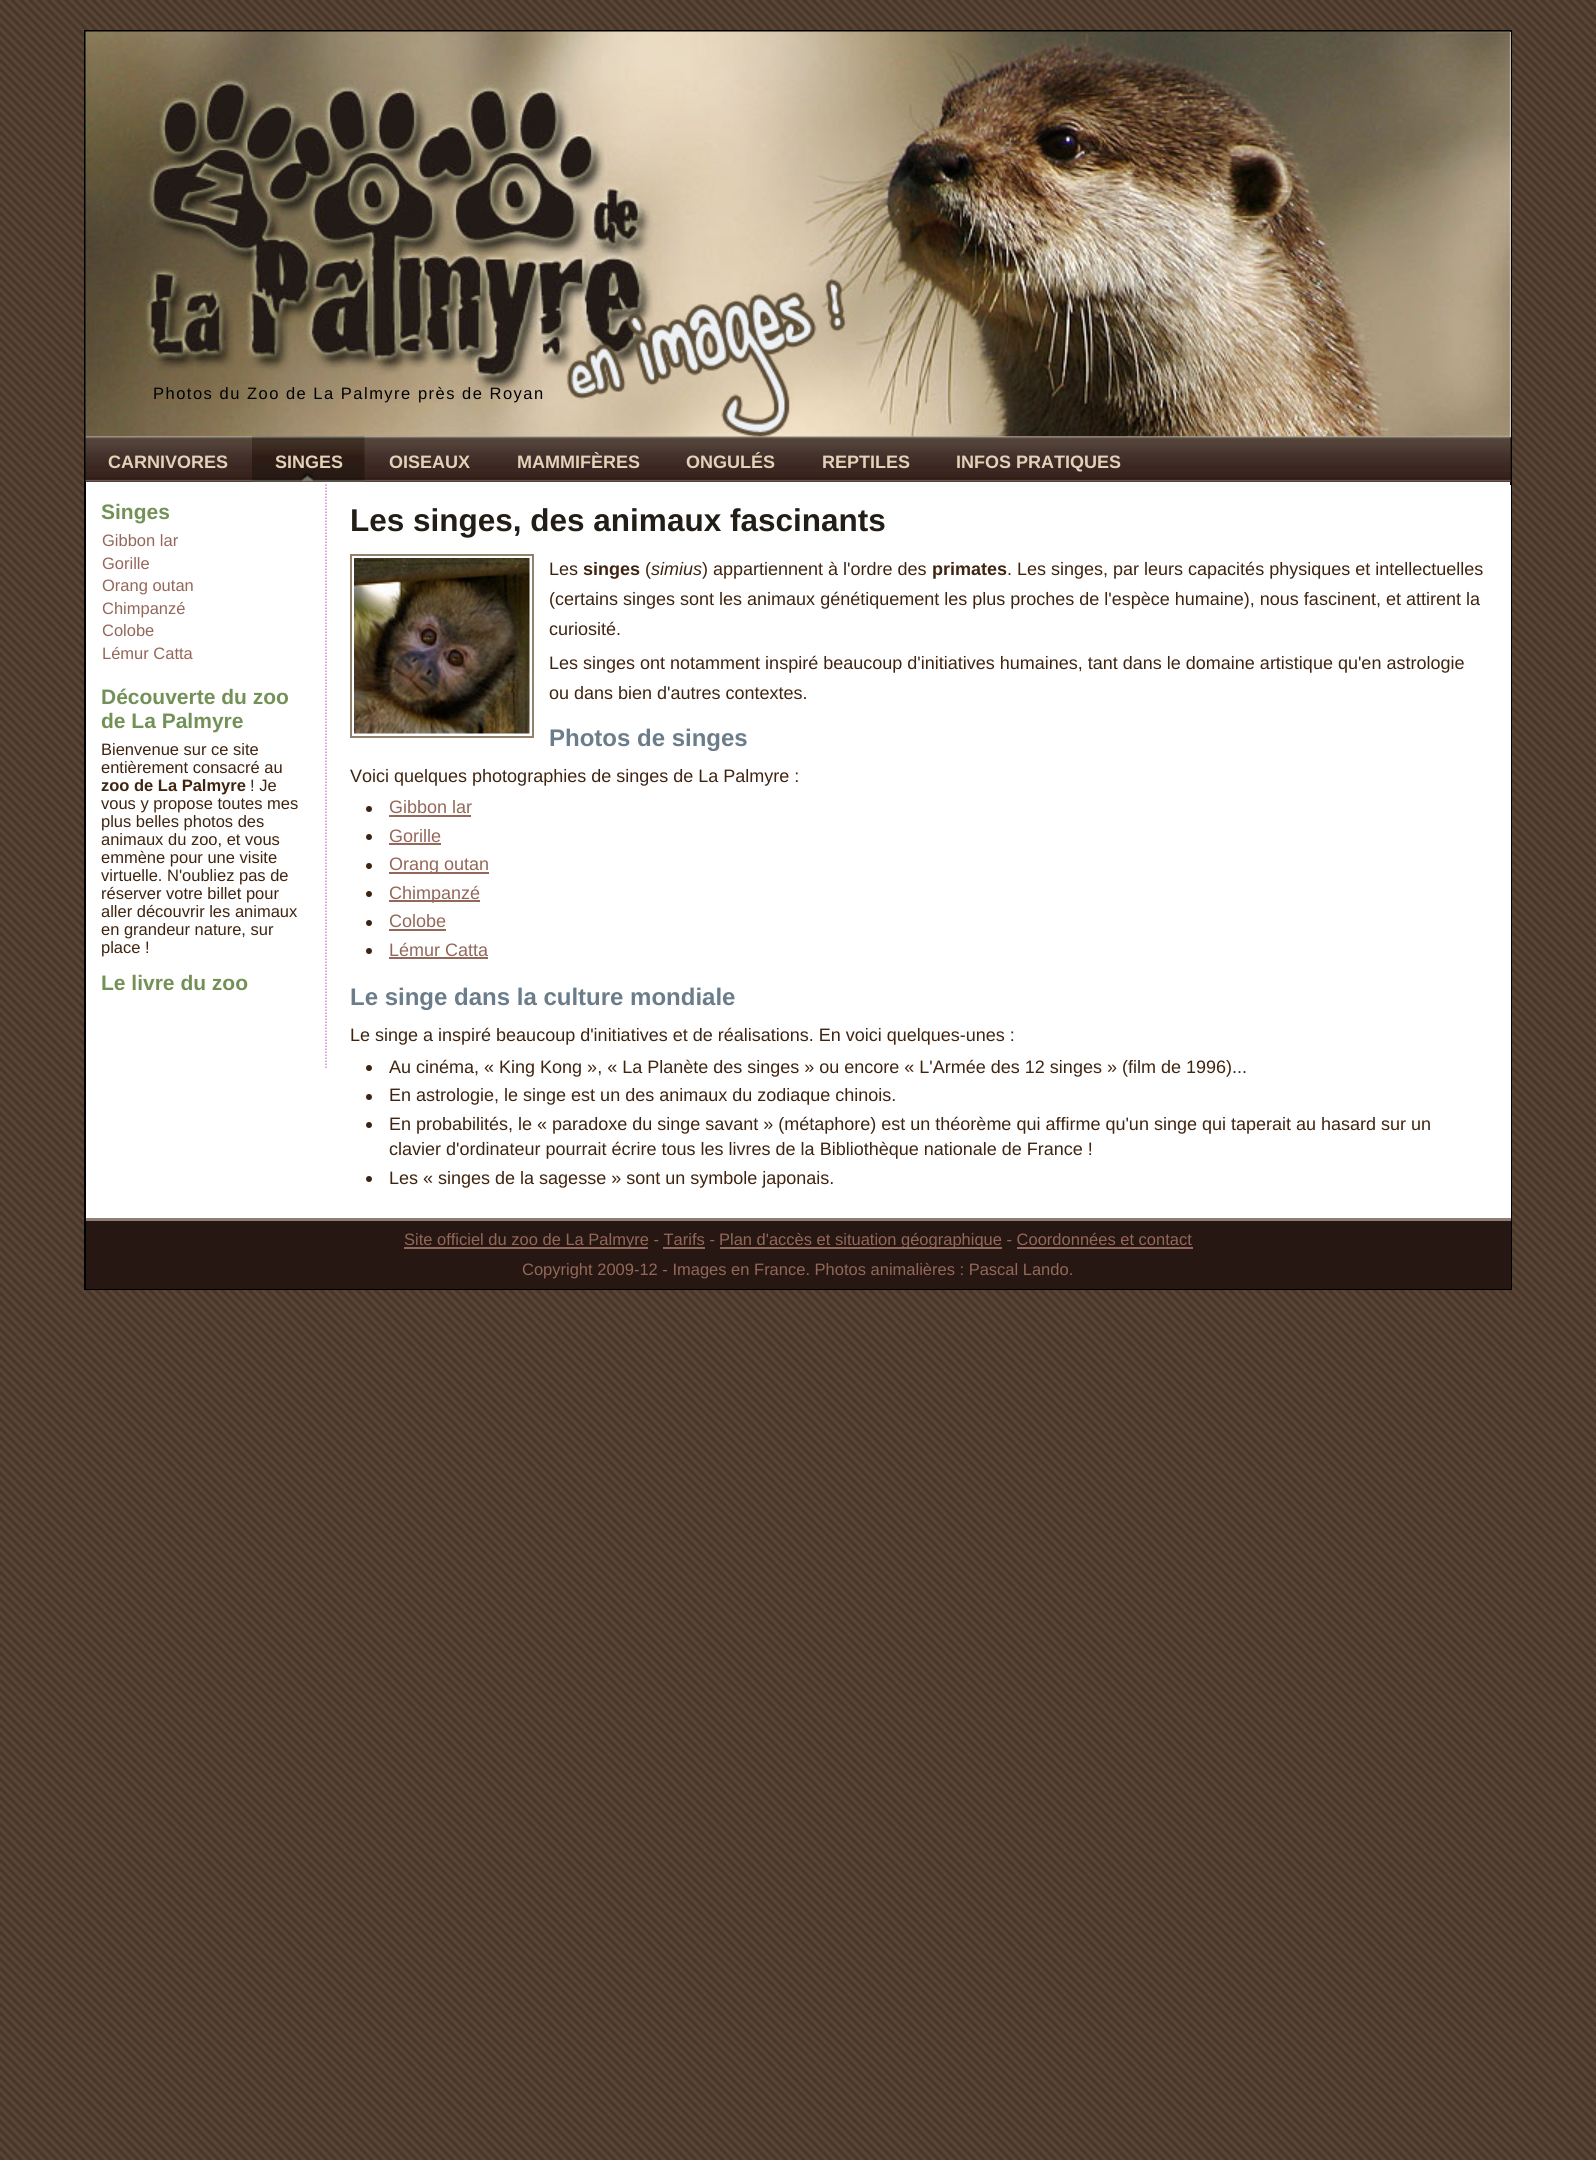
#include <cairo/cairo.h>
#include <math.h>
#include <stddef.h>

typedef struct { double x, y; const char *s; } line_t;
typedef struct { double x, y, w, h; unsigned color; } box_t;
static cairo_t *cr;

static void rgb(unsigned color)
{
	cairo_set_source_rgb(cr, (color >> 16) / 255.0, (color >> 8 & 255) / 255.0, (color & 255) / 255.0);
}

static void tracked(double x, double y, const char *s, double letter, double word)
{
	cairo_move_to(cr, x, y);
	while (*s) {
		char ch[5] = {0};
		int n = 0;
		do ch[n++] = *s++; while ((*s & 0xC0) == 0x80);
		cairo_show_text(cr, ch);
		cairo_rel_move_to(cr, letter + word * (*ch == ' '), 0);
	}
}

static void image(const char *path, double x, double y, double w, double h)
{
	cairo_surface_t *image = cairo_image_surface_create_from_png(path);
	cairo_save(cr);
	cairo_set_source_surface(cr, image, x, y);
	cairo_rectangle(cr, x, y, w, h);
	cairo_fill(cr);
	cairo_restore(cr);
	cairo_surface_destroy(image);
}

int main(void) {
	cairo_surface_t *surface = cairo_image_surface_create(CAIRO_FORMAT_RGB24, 1596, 2160);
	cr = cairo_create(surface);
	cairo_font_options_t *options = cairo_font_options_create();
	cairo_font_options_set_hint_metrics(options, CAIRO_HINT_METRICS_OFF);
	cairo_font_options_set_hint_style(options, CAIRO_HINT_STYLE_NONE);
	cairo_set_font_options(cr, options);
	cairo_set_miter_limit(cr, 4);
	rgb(0xffffff);
	cairo_paint(cr);
	image("img/1.png", 0, 0, 1596, 2160);
	rgb(0xffffff);
	cairo_rectangle(cr, 86, 482, 1424, 3);
	cairo_fill(cr);
	cairo_rectangle(cr, 85, 31, 1426, 1258);
	rgb(0x000000);
	cairo_stroke(cr);
	rgb(0xffffff);
	cairo_rectangle(cr, 86, 32, 1425, 405);
	cairo_fill(cr);
	image("img/2.png", 85, 31, 1426, 406);
	rgb(0x261712);
	cairo_rectangle(cr, 86, 437, 1425, 45);
	cairo_fill(cr);
	image("img/3.png", 85, 436, 1426, 46);
	image("img/4.png", 252, 436, 113, 46);
	rgb(0xffffff);
	cairo_rectangle(cr, 86, 485, 1425, 733);
	cairo_fill(cr);
	cairo_new_path(cr);
	cairo_move_to(cr, 326, 484.5);
	cairo_line_to(cr, 326, 1068);
	rgb(0xd688d4);
	cairo_set_line_width(cr, 1.5);
	cairo_set_dash(cr, (double[]){1.5, 1.5}, 2, 0);
	cairo_stroke(cr);
	cairo_rectangle(cr, 351, 555, 182, 182);
	rgb(0x91816d);
	cairo_set_line_width(cr, 2);
	cairo_set_dash(cr, NULL, 0, 0);
	cairo_stroke(cr);
	image("img/5.png", 354, 558, 176, 176);
	rgb(0x3f2410);
	cairo_arc(cr, 369, 809, 3, 0, 2 * M_PI);
	cairo_fill(cr);
	rgb(0x936759);
	cairo_rectangle(cr, 389, 815, 82, 2);
	cairo_fill(cr);
	rgb(0x3f2410);
	cairo_arc(cr, 369, 837, 3, 0, 2 * M_PI);
	cairo_fill(cr);
	rgb(0x936759);
	cairo_rectangle(cr, 389, 843, 52, 2);
	cairo_fill(cr);
	rgb(0x3f2410);
	cairo_arc(cr, 369, 866, 3, 0, 2 * M_PI);
	cairo_fill(cr);
	rgb(0x936759);
	cairo_rectangle(cr, 389, 872, 100, 2);
	cairo_fill(cr);
	rgb(0x3f2410);
	cairo_arc(cr, 369, 894, 3, 0, 2 * M_PI);
	cairo_fill(cr);
	rgb(0x936759);
	cairo_rectangle(cr, 389, 900, 91, 2);
	cairo_fill(cr);
	rgb(0x3f2410);
	cairo_arc(cr, 369, 923, 3, 0, 2 * M_PI);
	cairo_fill(cr);
	rgb(0x936759);
	cairo_rectangle(cr, 389, 929, 57, 2);
	cairo_fill(cr);
	rgb(0x3f2410);
	cairo_arc(cr, 369, 951, 3, 0, 2 * M_PI);
	cairo_fill(cr);
	rgb(0x936759);
	cairo_rectangle(cr, 389, 957, 99, 2);
	cairo_fill(cr);
	rgb(0x3f2410);
	cairo_arc(cr, 369, 1068, 3, 0, 2 * M_PI);
	cairo_fill(cr);
	cairo_arc(cr, 369, 1097, 3, 0, 2 * M_PI);
	cairo_fill(cr);
	cairo_arc(cr, 369, 1125, 3, 0, 2 * M_PI);
	cairo_fill(cr);
	cairo_arc(cr, 369, 1179, 3, 0, 2 * M_PI);
	cairo_fill(cr);
	{
		static const box_t items[] = {
			{86, 1221, 1425, 68, 0x261712},
			{86, 1218, 1425, 3, 0x917e77},
			{404, 1247, 244, 2, 0x936759},
			{720, 1247, 282, 2, 0x936759},
			{663, 1247, 42, 2, 0x936759},
			{1017, 1247, 176, 2, 0x936759},
		};
		for (size_t i = 0; i < sizeof items / sizeof *items; i++) {
			rgb(items[i].color);
			cairo_rectangle(cr, items[i].x, items[i].y, items[i].w, items[i].h);
			cairo_fill(cr);
		}
	}
	cairo_select_font_face(cr, "Liberation Sans", CAIRO_FONT_SLANT_NORMAL, CAIRO_FONT_WEIGHT_NORMAL);
	cairo_set_font_size(cr, 16.5);
	rgb(0x000000);
	tracked(153, 399, "Photos du Zoo de La Palmyre près de Royan", 1.5, 0);
	cairo_select_font_face(cr, "Liberation Sans", CAIRO_FONT_SLANT_NORMAL, CAIRO_FONT_WEIGHT_BOLD);
	cairo_set_font_size(cr, 18);
	rgb(0xe3d1b9);
	{
		static const line_t items[] = {
			{108, 468, "CARNIVORES"},
			{275, 468, "SINGES"},
			{389, 468, "OISEAUX"},
			{517, 468, "MAMMIFÈRES"},
			{686, 468, "ONGULÉS"},
			{822, 468, "REPTILES"},
			{956, 468, "INFOS PRATIQUES"},
		};
		for (size_t i = 0; i < sizeof items / sizeof *items; i++) {
			cairo_move_to(cr, items[i].x, items[i].y);
			cairo_show_text(cr, items[i].s);
		}
	}
	cairo_set_font_size(cr, 21);
	rgb(0x739157);
	cairo_move_to(cr, 101, 519);
	cairo_show_text(cr, "Singes");
	cairo_select_font_face(cr, "Liberation Sans", CAIRO_FONT_SLANT_NORMAL, CAIRO_FONT_WEIGHT_NORMAL);
	cairo_set_font_size(cr, 16.5);
	rgb(0x936759);
	{
		static const line_t items[] = {
			{102, 546, "Gibbon lar"},
			{102, 569, "Gorille"},
			{102, 591, "Orang outan"},
			{102, 614, "Chimpanzé"},
			{102, 636, "Colobe"},
			{102, 659, "Lémur Catta"},
		};
		for (size_t i = 0; i < sizeof items / sizeof *items; i++) {
			cairo_move_to(cr, items[i].x, items[i].y);
			cairo_show_text(cr, items[i].s);
		}
	}
	cairo_select_font_face(cr, "Liberation Sans", CAIRO_FONT_SLANT_NORMAL, CAIRO_FONT_WEIGHT_BOLD);
	cairo_set_font_size(cr, 21);
	rgb(0x739157);
	cairo_move_to(cr, 101, 704);
	cairo_show_text(cr, "Découverte du zoo");
	cairo_move_to(cr, 101, 728);
	cairo_show_text(cr, "de La Palmyre");
	cairo_select_font_face(cr, "Liberation Sans", CAIRO_FONT_SLANT_NORMAL, CAIRO_FONT_WEIGHT_NORMAL);
	cairo_set_font_size(cr, 16.5);
	rgb(0x3f2410);
	cairo_move_to(cr, 101, 755);
	cairo_show_text(cr, "Bienvenue sur ce site");
	cairo_move_to(cr, 101, 773);
	cairo_show_text(cr, "entièrement consacré au");
	cairo_select_font_face(cr, "Liberation Sans", CAIRO_FONT_SLANT_NORMAL, CAIRO_FONT_WEIGHT_BOLD);
	cairo_move_to(cr, 101, 791);
	cairo_show_text(cr, "zoo de La Palmyre");
	cairo_select_font_face(cr, "Liberation Sans", CAIRO_FONT_SLANT_NORMAL, CAIRO_FONT_WEIGHT_NORMAL);
	{
		static const line_t items[] = {
			{250, 791, "! Je"},
			{101, 809, "vous y propose toutes mes"},
			{101, 827, "plus belles photos des"},
			{101, 845, "animaux du zoo, et vous"},
			{101, 863, "emmène pour une visite"},
			{101, 881, "virtuelle. N'oubliez pas de"},
			{101, 899, "réserver votre billet pour"},
			{101, 917, "aller découvrir les animaux"},
			{101, 935, "en grandeur nature, sur"},
			{101, 953, "place !"},
		};
		for (size_t i = 0; i < sizeof items / sizeof *items; i++) {
			cairo_move_to(cr, items[i].x, items[i].y);
			cairo_show_text(cr, items[i].s);
		}
	}
	cairo_select_font_face(cr, "Liberation Sans", CAIRO_FONT_SLANT_NORMAL, CAIRO_FONT_WEIGHT_BOLD);
	cairo_set_font_size(cr, 21);
	rgb(0x739157);
	cairo_move_to(cr, 101, 990);
	cairo_show_text(cr, "Le livre du zoo");
	cairo_set_font_size(cr, 31.5);
	rgb(0x221d17);
	cairo_move_to(cr, 350, 531);
	cairo_show_text(cr, "Les singes, des animaux fascinants");
	cairo_select_font_face(cr, "Liberation Sans", CAIRO_FONT_SLANT_NORMAL, CAIRO_FONT_WEIGHT_NORMAL);
	cairo_set_font_size(cr, 18);
	rgb(0x3f2410);
	cairo_move_to(cr, 549, 575);
	cairo_show_text(cr, "Les");
	cairo_select_font_face(cr, "Liberation Sans", CAIRO_FONT_SLANT_NORMAL, CAIRO_FONT_WEIGHT_BOLD);
	cairo_move_to(cr, 583, 575);
	cairo_show_text(cr, "singes");
	cairo_select_font_face(cr, "Liberation Sans", CAIRO_FONT_SLANT_NORMAL, CAIRO_FONT_WEIGHT_NORMAL);
	cairo_move_to(cr, 645, 575);
	cairo_show_text(cr, "(");
	cairo_select_font_face(cr, "Liberation Sans", CAIRO_FONT_SLANT_ITALIC, CAIRO_FONT_WEIGHT_NORMAL);
	cairo_move_to(cr, 651, 575);
	cairo_show_text(cr, "simius");
	cairo_select_font_face(cr, "Liberation Sans", CAIRO_FONT_SLANT_NORMAL, CAIRO_FONT_WEIGHT_NORMAL);
	cairo_move_to(cr, 702, 575);
	cairo_show_text(cr, ") appartiennent à l'ordre des");
	cairo_select_font_face(cr, "Liberation Sans", CAIRO_FONT_SLANT_NORMAL, CAIRO_FONT_WEIGHT_BOLD);
	cairo_move_to(cr, 932, 575);
	cairo_show_text(cr, "primates");
	cairo_select_font_face(cr, "Liberation Sans", CAIRO_FONT_SLANT_NORMAL, CAIRO_FONT_WEIGHT_NORMAL);
	{
		static const line_t items[] = {
			{1007, 575, ". Les singes, par leurs capacités physiques et intellectuelles"},
			{549, 605, "(certains singes sont les animaux génétiquement les plus proches de l'espèce humaine), nous fascinent, et attirent la"},
			{549, 635, "curiosité."},
			{549, 669, "Les singes ont notamment inspiré beaucoup d'initiatives humaines, tant dans le domaine artistique qu'en astrologie"},
			{549, 699, "ou dans bien d'autres contextes."},
		};
		for (size_t i = 0; i < sizeof items / sizeof *items; i++) {
			cairo_move_to(cr, items[i].x, items[i].y);
			cairo_show_text(cr, items[i].s);
		}
	}
	cairo_select_font_face(cr, "Liberation Sans", CAIRO_FONT_SLANT_NORMAL, CAIRO_FONT_WEIGHT_BOLD);
	cairo_set_font_size(cr, 24);
	rgb(0x6b7d8a);
	cairo_move_to(cr, 549, 746);
	cairo_show_text(cr, "Photos de singes");
	cairo_select_font_face(cr, "Liberation Sans", CAIRO_FONT_SLANT_NORMAL, CAIRO_FONT_WEIGHT_NORMAL);
	cairo_set_font_size(cr, 18);
	rgb(0x3f2410);
	cairo_move_to(cr, 350, 782);
	cairo_show_text(cr, "Voici quelques photographies de singes de La Palmyre :");
	rgb(0x936759);
	{
		static const line_t items[] = {
			{389, 813, "Gibbon lar"},
			{389, 842, "Gorille"},
			{389, 870, "Orang outan"},
			{389, 899, "Chimpanzé"},
			{389, 927, "Colobe"},
			{389, 956, "Lémur Catta"},
		};
		for (size_t i = 0; i < sizeof items / sizeof *items; i++) {
			cairo_move_to(cr, items[i].x, items[i].y);
			cairo_show_text(cr, items[i].s);
		}
	}
	cairo_select_font_face(cr, "Liberation Sans", CAIRO_FONT_SLANT_NORMAL, CAIRO_FONT_WEIGHT_BOLD);
	cairo_set_font_size(cr, 24);
	rgb(0x6b7d8a);
	cairo_move_to(cr, 350, 1005);
	cairo_show_text(cr, "Le singe dans la culture mondiale");
	cairo_select_font_face(cr, "Liberation Sans", CAIRO_FONT_SLANT_NORMAL, CAIRO_FONT_WEIGHT_NORMAL);
	cairo_set_font_size(cr, 18);
	rgb(0x3f2410);
	{
		static const line_t items[] = {
			{350, 1041, "Le singe a inspiré beaucoup d'initiatives et de réalisations. En voici quelques-unes :"},
			{389, 1073, "Au cinéma, « King Kong », « La Planète des singes » ou encore « L'Armée des 12 singes » (film de 1996)..."},
			{389, 1101, "En astrologie, le singe est un des animaux du zodiaque chinois."},
			{389, 1130, "En probabilités, le « paradoxe du singe savant » (métaphore) est un théorème qui affirme qu'un singe qui taperait au hasard sur un"},
			{389, 1155, "clavier d'ordinateur pourrait écrire tous les livres de la Bibliothèque nationale de France !"},
			{389, 1184, "Les « singes de la sagesse » sont un symbole japonais."},
		};
		for (size_t i = 0; i < sizeof items / sizeof *items; i++) {
			cairo_move_to(cr, items[i].x, items[i].y);
			cairo_show_text(cr, items[i].s);
		}
	}
	cairo_set_font_size(cr, 16.5);
	rgb(0x936759);
	{
		static const line_t items[] = {
			{404, 1245, "Site officiel du zoo de La Palmyre - Tarifs -"},
			{719, 1245, "Plan d'accès et situation géographique - Coordonnées et contact"},
			{522, 1275, "Copyright 2009-12 - Images en France. Photos animalières : Pascal Lando."},
		};
		for (size_t i = 0; i < sizeof items / sizeof *items; i++) {
			cairo_move_to(cr, items[i].x, items[i].y);
			cairo_show_text(cr, items[i].s);
		}
	}
	cairo_surface_write_to_png(surface, "page.png");
	cairo_font_options_destroy(options);
	cairo_destroy(cr);
	cairo_surface_destroy(surface);
	return 0;
}
